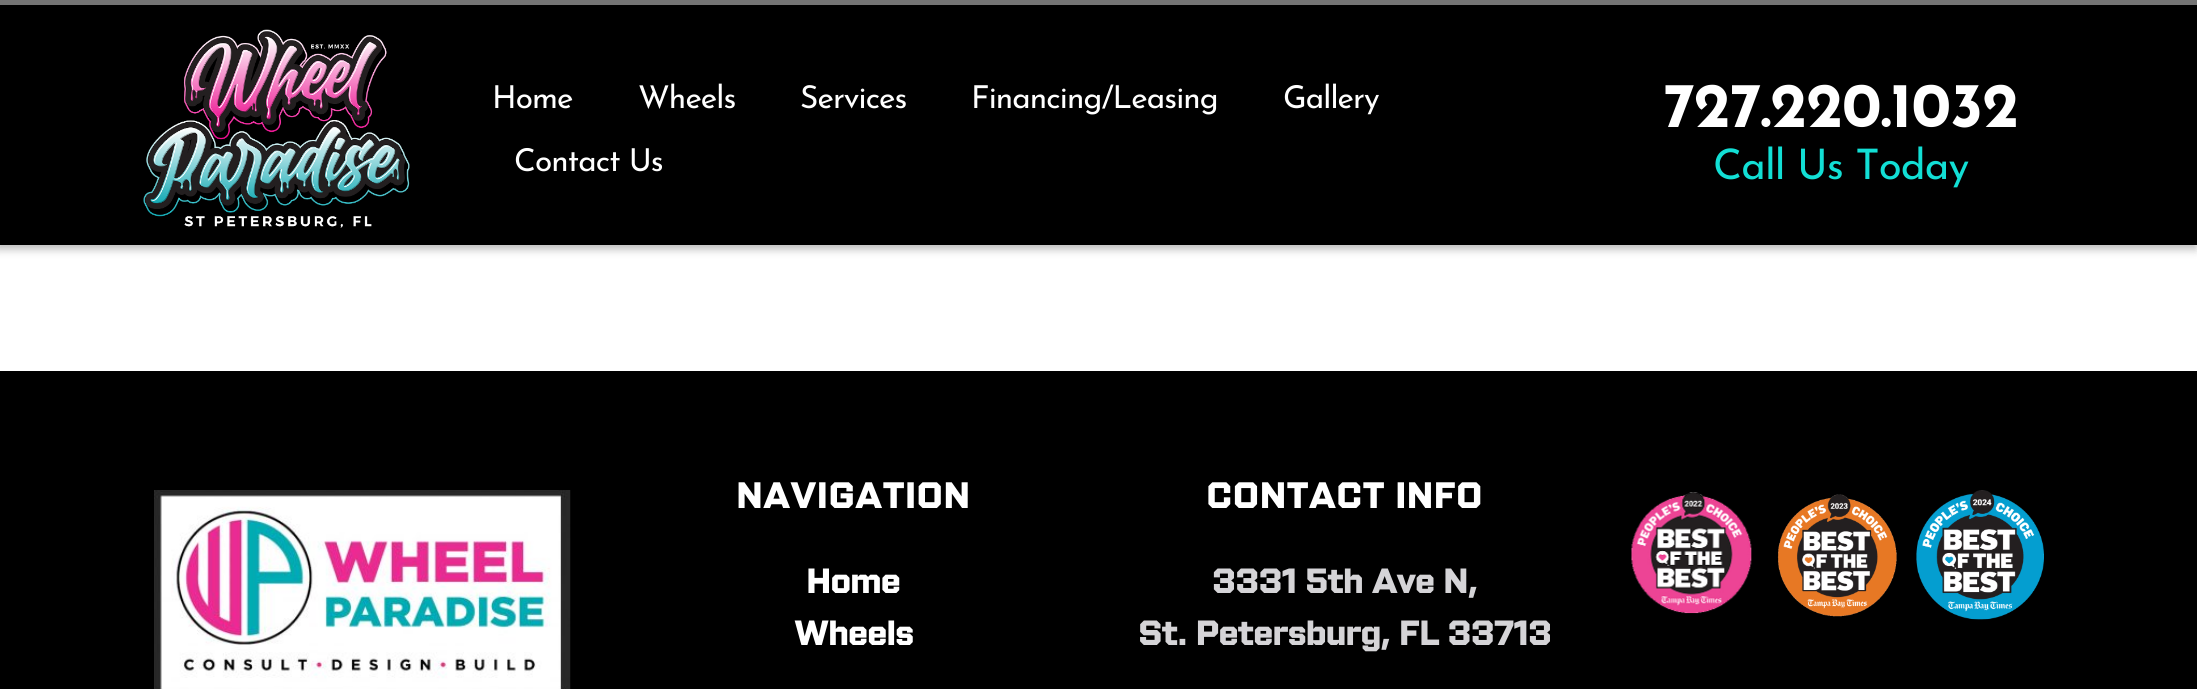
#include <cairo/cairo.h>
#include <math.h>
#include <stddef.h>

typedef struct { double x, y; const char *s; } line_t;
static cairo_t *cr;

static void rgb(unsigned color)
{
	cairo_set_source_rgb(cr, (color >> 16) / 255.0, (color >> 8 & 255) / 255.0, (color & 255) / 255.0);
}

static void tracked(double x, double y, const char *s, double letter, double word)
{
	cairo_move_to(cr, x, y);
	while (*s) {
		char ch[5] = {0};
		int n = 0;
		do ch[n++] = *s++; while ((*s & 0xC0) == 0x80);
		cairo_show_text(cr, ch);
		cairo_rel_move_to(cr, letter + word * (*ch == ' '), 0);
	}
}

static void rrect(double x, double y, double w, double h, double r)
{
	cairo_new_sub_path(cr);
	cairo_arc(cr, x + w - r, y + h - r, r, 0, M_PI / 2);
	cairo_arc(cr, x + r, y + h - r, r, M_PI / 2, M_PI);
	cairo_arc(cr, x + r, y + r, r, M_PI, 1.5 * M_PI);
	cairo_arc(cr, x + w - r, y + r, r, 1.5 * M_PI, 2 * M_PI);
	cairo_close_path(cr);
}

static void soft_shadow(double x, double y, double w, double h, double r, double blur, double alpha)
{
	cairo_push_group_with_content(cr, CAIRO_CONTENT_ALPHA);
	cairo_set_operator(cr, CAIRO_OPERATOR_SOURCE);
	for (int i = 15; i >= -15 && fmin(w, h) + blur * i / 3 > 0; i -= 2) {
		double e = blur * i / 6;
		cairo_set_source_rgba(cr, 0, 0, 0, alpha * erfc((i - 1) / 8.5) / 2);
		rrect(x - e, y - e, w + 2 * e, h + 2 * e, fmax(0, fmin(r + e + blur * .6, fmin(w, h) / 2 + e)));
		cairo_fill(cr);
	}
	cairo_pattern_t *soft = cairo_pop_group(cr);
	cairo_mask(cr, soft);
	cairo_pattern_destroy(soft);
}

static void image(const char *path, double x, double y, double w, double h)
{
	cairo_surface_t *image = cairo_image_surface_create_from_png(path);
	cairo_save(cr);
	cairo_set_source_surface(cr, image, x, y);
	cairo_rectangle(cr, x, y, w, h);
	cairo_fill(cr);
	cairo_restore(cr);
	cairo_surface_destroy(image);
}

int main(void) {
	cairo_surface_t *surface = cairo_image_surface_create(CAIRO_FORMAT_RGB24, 2197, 689);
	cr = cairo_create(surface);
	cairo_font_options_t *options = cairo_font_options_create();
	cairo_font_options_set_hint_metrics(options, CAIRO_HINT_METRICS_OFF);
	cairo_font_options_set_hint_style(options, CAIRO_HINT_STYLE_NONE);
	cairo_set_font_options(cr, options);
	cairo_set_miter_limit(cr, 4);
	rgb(0xffffff);
	cairo_paint(cr);
	rgb(0x000000);
	soft_shadow(-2, 4, 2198, 245, 0, 4.5, 0.28);
	rgb(0x000000);
	cairo_rectangle(cr, 0, 5, 2197, 240);
	cairo_fill(cr);
	rgb(0x747474);
	cairo_rectangle(cr, 0, 0, 2197, 5);
	cairo_fill(cr);
	image("img/1.png", 143, 29, 267, 199);
	rgb(0x000000);
	cairo_rectangle(cr, 0, 371, 2197, 318);
	cairo_fill(cr);
	image("img/2.png", 154, 490, 417, 199);
	image("img/3.png", 1631, 492, 121, 122);
	image("img/4.png", 1777, 494, 120, 123);
	image("img/5.png", 1916, 490, 128, 130);
	cairo_select_font_face(cr, "Josefin Sans", CAIRO_FONT_SLANT_NORMAL, CAIRO_FONT_WEIGHT_NORMAL);
	cairo_set_font_size(cr, 31.5);
	rgb(0xffffff);
	{
		static const line_t items[] = {
			{492, 108, "Home"},
			{638, 108, "Wheels"},
			{800, 108, "Services"},
			{971, 108, "Financing/Leasing"},
			{1283, 108, "Gallery"},
			{514, 171, "Contact Us"},
		};
		for (size_t i = 0; i < sizeof items / sizeof *items; i++) {
			tracked(items[i].x, items[i].y, items[i].s, -0.9, 0);
		}
	}
	cairo_select_font_face(cr, "Josefin Sans", CAIRO_FONT_SLANT_NORMAL, CAIRO_FONT_WEIGHT_BOLD);
	cairo_set_font_size(cr, 63);
	tracked(1663, 127, "727.220.1032", -0.9, 0);
	cairo_select_font_face(cr, "Josefin Sans", CAIRO_FONT_SLANT_NORMAL, CAIRO_FONT_WEIGHT_NORMAL);
	cairo_set_font_size(cr, 42);
	rgb(0x12dfd5);
	tracked(1713, 179, "Call Us Today", -0.9, 0);
	cairo_select_font_face(cr, "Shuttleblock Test", CAIRO_FONT_SLANT_NORMAL, CAIRO_FONT_WEIGHT_BOLD);
	cairo_set_font_size(cr, 36.75);
	rgb(0xffffff);
	cairo_move_to(cr, 736, 508);
	cairo_show_text(cr, "NAVIGATION");
	cairo_set_font_size(cr, 35);
	tracked(806, 593, "Home", -0.9, 0);
	tracked(794, 645, "Wheels", -0.9, 0);
	cairo_set_font_size(cr, 36.75);
	cairo_move_to(cr, 1206, 508);
	cairo_show_text(cr, "CONTACT INFO");
	cairo_set_font_size(cr, 35);
	rgb(0xd5d4d7);
	tracked(1212, 593, "3331 5th Ave N,", -0.9, 0);
	tracked(1138, 645, "St. Petersburg, FL 33713", -0.9, 0);
	cairo_surface_write_to_png(surface, "page.png");
	cairo_font_options_destroy(options);
	cairo_destroy(cr);
	cairo_surface_destroy(surface);
	return 0;
}
